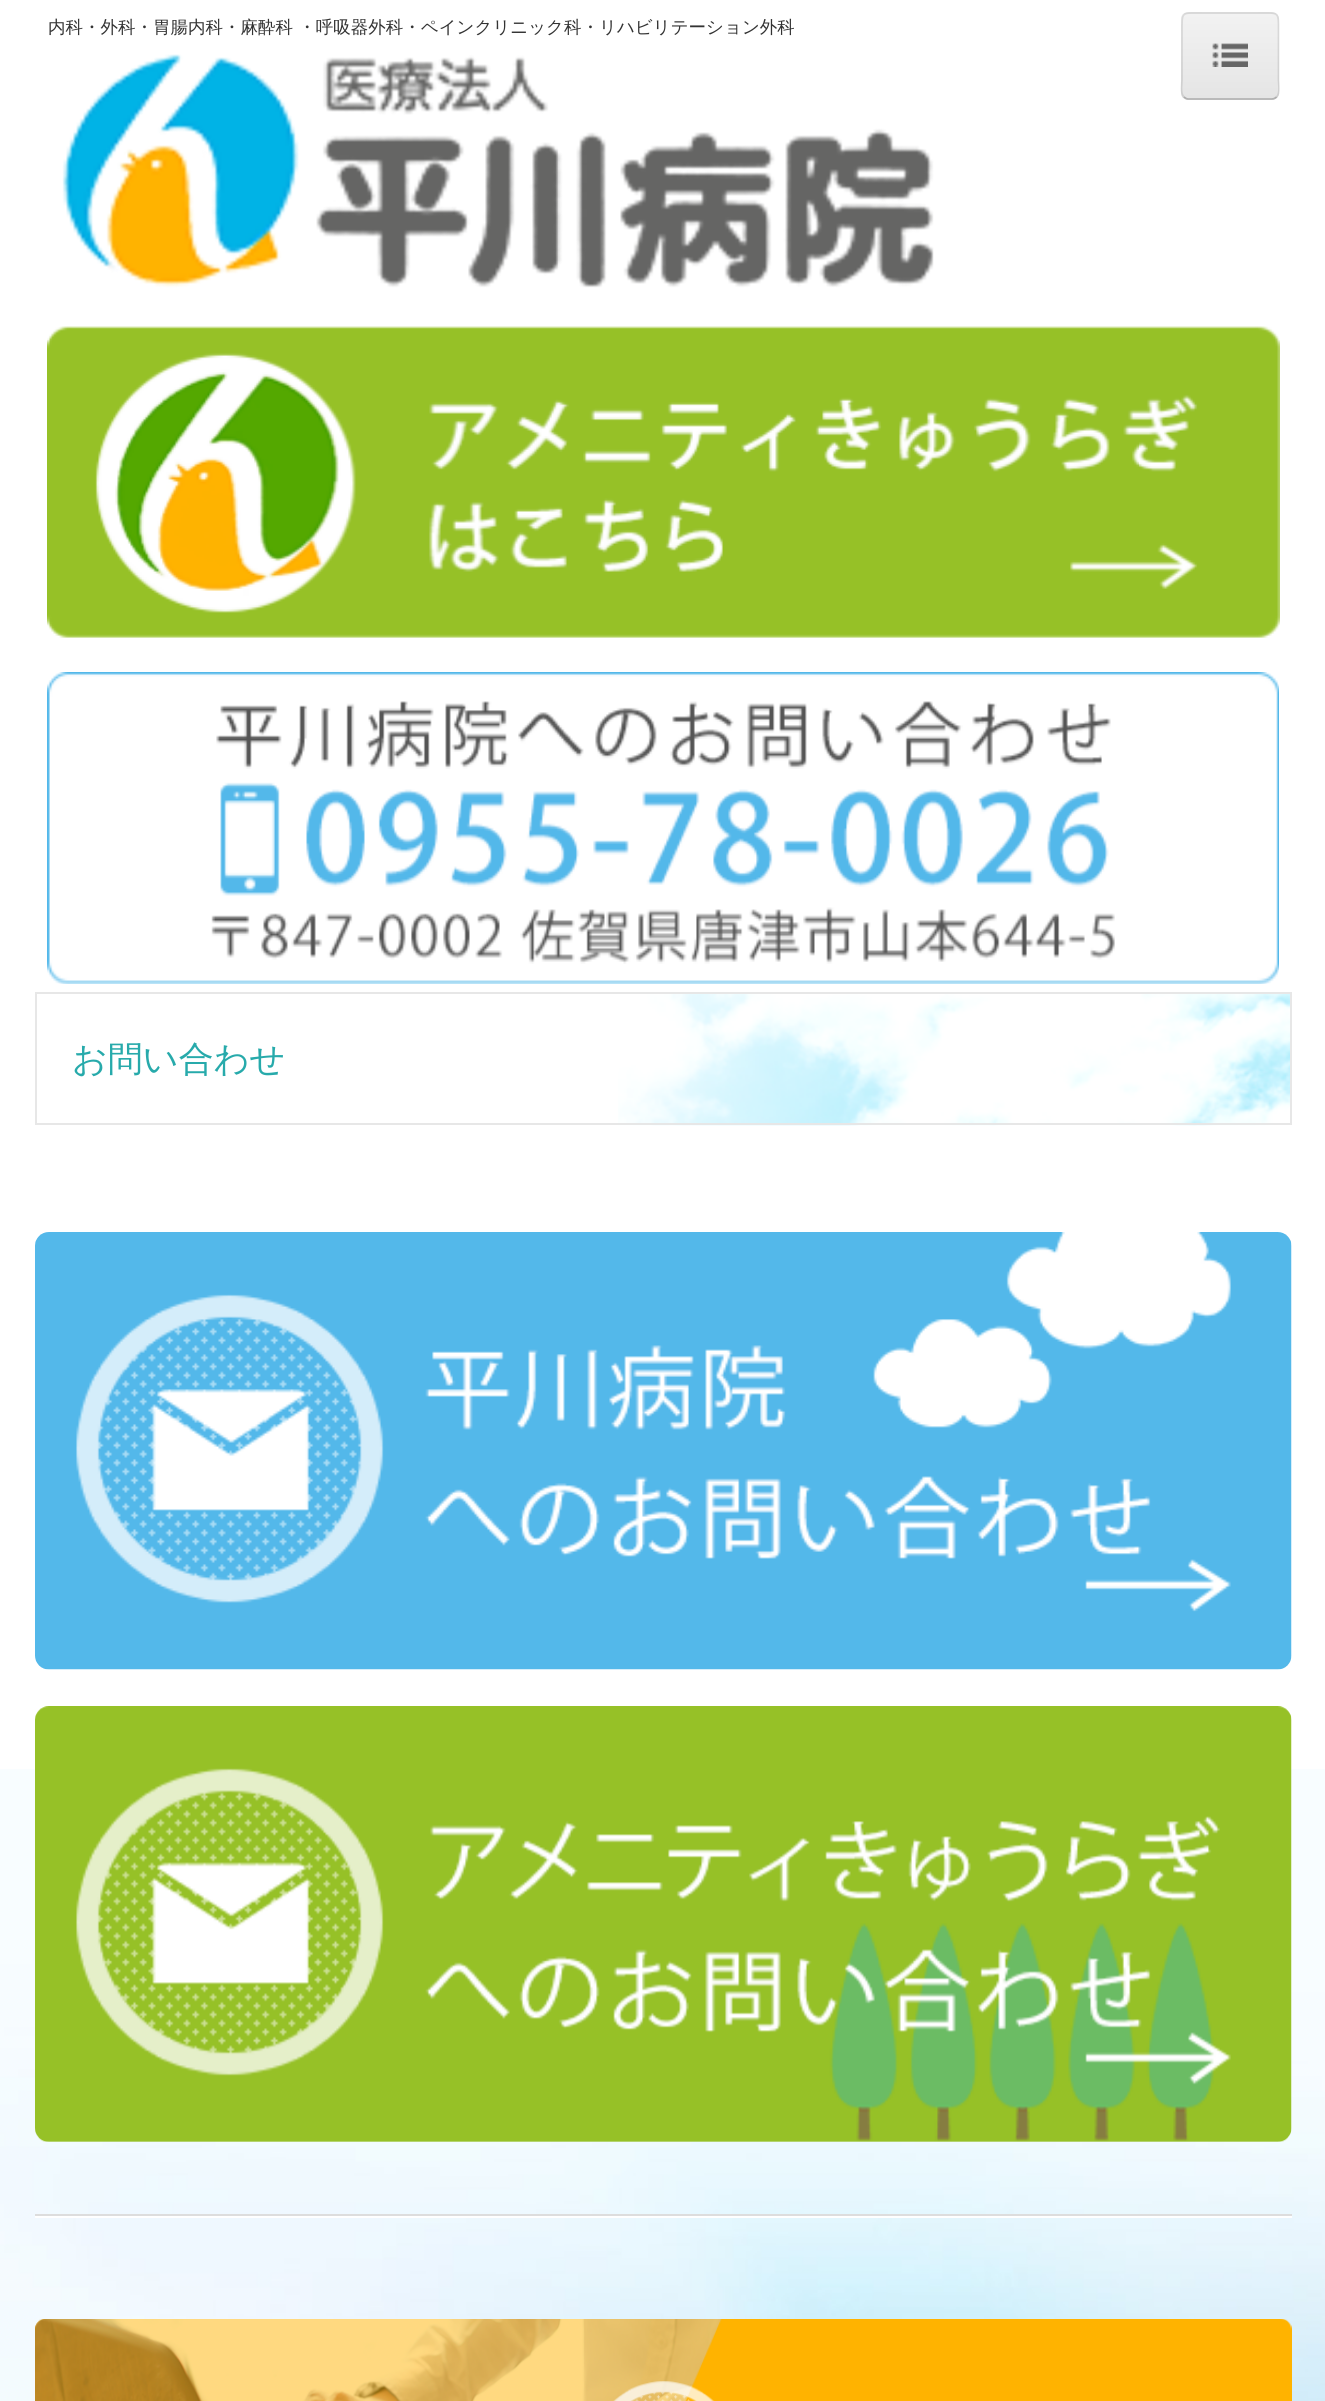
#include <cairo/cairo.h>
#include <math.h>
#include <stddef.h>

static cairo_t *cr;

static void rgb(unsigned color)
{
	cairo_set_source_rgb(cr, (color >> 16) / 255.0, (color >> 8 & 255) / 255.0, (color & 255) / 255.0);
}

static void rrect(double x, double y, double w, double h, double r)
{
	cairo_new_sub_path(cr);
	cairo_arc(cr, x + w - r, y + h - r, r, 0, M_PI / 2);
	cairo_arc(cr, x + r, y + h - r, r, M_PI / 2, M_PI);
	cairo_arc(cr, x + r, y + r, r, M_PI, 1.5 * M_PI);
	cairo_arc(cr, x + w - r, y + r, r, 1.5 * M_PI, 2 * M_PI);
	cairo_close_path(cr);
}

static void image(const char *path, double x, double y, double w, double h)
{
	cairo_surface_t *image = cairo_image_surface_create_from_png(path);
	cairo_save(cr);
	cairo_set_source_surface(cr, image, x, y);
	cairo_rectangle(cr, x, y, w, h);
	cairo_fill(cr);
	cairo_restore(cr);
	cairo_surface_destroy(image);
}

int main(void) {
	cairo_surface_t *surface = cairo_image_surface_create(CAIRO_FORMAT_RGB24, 1325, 2401);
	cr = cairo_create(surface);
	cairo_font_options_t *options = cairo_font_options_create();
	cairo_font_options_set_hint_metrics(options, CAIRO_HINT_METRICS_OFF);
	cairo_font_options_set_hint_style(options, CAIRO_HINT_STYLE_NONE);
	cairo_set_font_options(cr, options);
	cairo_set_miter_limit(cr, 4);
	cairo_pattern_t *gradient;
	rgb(0xffffff);
	cairo_paint(cr);
	image("img/1.png", 62, 54, 872, 234);
	image("img/2.png", 47, 326, 1233, 312);
	image("img/3.png", 47, 672, 1232, 312);
	rgb(0xededed);
	rrect(1181, 12, 98, 88, 7);
	cairo_fill(cr);
	cairo_save(cr);
	rrect(1181, 12, 98, 88, 7);
	cairo_clip(cr);
	gradient = cairo_pattern_create_linear(1230, 14, 1230, 98);
	cairo_pattern_add_color_stop_rgba(gradient, 0, 0.949, 0.949, 0.949, 1);
	cairo_pattern_add_color_stop_rgba(gradient, 1, 0.898, 0.898, 0.898, 1);
	cairo_set_source(cr, gradient);
	cairo_pattern_destroy(gradient);
	cairo_rectangle(cr, 1181, 14, 98, 84);
	cairo_fill(cr);
	cairo_restore(cr);
	cairo_new_path(cr);
	cairo_move_to(cr, 1276.5, 97);
	cairo_curve_to(cr, 1275.5, 98, 1274, 99, 1272, 99);
	cairo_line_to(cr, 1188, 99);
	cairo_curve_to(cr, 1186.5, 99, 1185, 98, 1184, 97);
	cairo_set_source_rgba(cr, 0, 0, 0, 0.25);
	cairo_set_line_width(cr, 1.8);
	cairo_stroke(cr);
	cairo_new_path(cr);
	cairo_move_to(cr, 1184, 97);
	cairo_curve_to(cr, 1180, 93.5, 1182, 83, 1182, 80.5);
	cairo_line_to(cr, 1182, 31.5);
	cairo_curve_to(cr, 1182, 11, 1181, 13, 1202, 13);
	cairo_line_to(cr, 1258, 13);
	cairo_curve_to(cr, 1279.5, 13, 1278.5, 11, 1278.5, 31.5);
	cairo_line_to(cr, 1278.5, 80.5);
	cairo_curve_to(cr, 1278.5, 83, 1280.5, 93.5, 1276.5, 97);
	cairo_set_source_rgba(cr, 0, 0, 0, 0.1);
	cairo_stroke(cr);
	image("img/4.png", 1212, 43, 36, 24);
	image("img/5.png", 618, 994, 674, 132);
	cairo_rectangle(cr, 36, 993, 1255, 131);
	rgb(0xe7e7e7);
	cairo_set_line_width(cr, 2);
	cairo_stroke(cr);
	image("img/6.png", 35, 1232, 1257, 438);
	image("img/9.png", 0, 1769, 1325, 632);
	image("img/7.png", 35, 1706, 1257, 436);
	rgb(0xdddddd);
	cairo_rectangle(cr, 35, 2214, 1257, 2);
	cairo_fill(cr);
	rgb(0xffffff);
	cairo_rectangle(cr, 35, 2216, 1257, 2);
	cairo_fill(cr);
	image("img/8.png", 35, 2319, 1257, 82);
	cairo_select_font_face(cr, "WenQuanYi Zen Hei Medium", CAIRO_FONT_SLANT_NORMAL, CAIRO_FONT_WEIGHT_NORMAL);
	cairo_set_font_size(cr, 17.5);
	rgb(0x333333);
	cairo_move_to(cr, 48, 33);
	cairo_show_text(cr, "内科・外科・胃腸内科・麻酔科 ・呼吸器外科・ペインクリニック科・リハビリテーション外科");
	cairo_set_font_size(cr, 35);
	rgb(0x27aaab);
	cairo_move_to(cr, 72, 1071);
	cairo_show_text(cr, "お問い合わせ");
	cairo_surface_write_to_png(surface, "page.png");
	cairo_font_options_destroy(options);
	cairo_destroy(cr);
	cairo_surface_destroy(surface);
	return 0;
}
